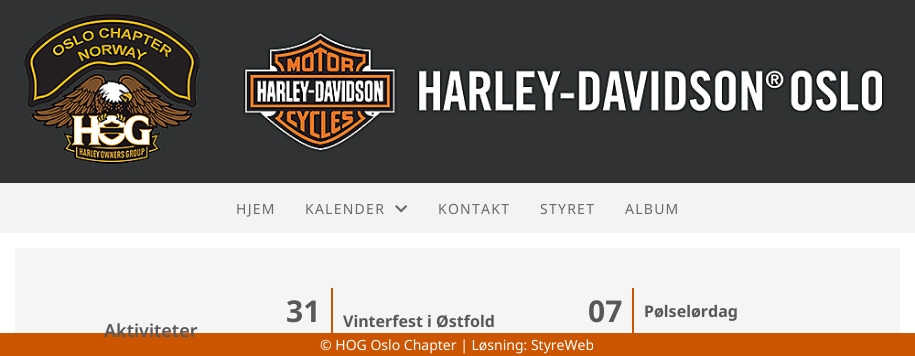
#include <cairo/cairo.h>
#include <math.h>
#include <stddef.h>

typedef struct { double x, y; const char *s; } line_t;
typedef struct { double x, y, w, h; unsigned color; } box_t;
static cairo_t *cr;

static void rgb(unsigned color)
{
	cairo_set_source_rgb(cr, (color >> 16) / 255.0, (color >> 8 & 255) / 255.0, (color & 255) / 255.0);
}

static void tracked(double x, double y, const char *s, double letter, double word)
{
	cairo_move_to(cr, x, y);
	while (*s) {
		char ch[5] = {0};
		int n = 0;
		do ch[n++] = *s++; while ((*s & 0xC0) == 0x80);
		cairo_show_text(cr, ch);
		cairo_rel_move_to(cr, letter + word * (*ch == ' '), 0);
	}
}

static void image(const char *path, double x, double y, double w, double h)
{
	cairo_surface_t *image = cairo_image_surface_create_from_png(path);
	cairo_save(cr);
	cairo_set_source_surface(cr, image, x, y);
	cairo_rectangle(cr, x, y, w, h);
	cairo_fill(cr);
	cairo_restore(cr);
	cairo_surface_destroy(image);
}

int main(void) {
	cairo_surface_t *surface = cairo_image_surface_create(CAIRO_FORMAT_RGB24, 915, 356);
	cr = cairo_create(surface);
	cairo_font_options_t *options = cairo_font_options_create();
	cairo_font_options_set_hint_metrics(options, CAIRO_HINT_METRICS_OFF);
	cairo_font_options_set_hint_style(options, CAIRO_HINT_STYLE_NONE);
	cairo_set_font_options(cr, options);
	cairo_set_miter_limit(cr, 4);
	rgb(0xffffff);
	cairo_paint(cr);
	image("img/1.png", 0, 0, 915, 183);
	rgb(0xf3f3f3);
	cairo_rectangle(cr, 0, 183, 915, 50);
	cairo_fill(cr);
	image("img/2.png", 395, 205, 12, 8);
	{
		static const box_t items[] = {
			{15, 248, 885, 85, 0xf5f5f5},
			{331, 288, 2, 45, 0xcc5600},
			{632, 288, 2, 45, 0xcc5600},
			{0, 333, 915, 23, 0xcc5600},
		};
		for (size_t i = 0; i < sizeof items / sizeof *items; i++) {
			rgb(items[i].color);
			cairo_rectangle(cr, items[i].x, items[i].y, items[i].w, items[i].h);
			cairo_fill(cr);
		}
	}
	cairo_select_font_face(cr, "Noto Sans", CAIRO_FONT_SLANT_NORMAL, CAIRO_FONT_WEIGHT_NORMAL);
	cairo_set_font_size(cr, 14);
	rgb(0x696969);
	{
		static const line_t items[] = {
			{236, 214, "HJEM"},
			{305, 214, "KALENDER"},
			{438, 214, "KONTAKT"},
			{540, 214, "STYRET"},
			{625, 214, "ALBUM"},
		};
		for (size_t i = 0; i < sizeof items / sizeof *items; i++) {
			tracked(items[i].x, items[i].y, items[i].s, 1.25, 0);
		}
	}
	cairo_select_font_face(cr, "Noto Sans SemiBold", CAIRO_FONT_SLANT_NORMAL, CAIRO_FONT_WEIGHT_NORMAL);
	cairo_set_font_size(cr, 18);
	rgb(0x585858);
	cairo_move_to(cr, 104, 337);
	cairo_show_text(cr, "Aktiviteter");
	cairo_select_font_face(cr, "Noto Sans", CAIRO_FONT_SLANT_NORMAL, CAIRO_FONT_WEIGHT_BOLD);
	cairo_set_font_size(cr, 30);
	cairo_move_to(cr, 286, 322);
	cairo_show_text(cr, "31");
	cairo_set_font_size(cr, 16);
	cairo_move_to(cr, 343, 327);
	cairo_show_text(cr, "Vinterfest i Østfold");
	cairo_set_font_size(cr, 30);
	cairo_move_to(cr, 588, 322);
	cairo_show_text(cr, "07");
	cairo_set_font_size(cr, 16);
	cairo_move_to(cr, 644, 317);
	cairo_show_text(cr, "Pølselørdag");
	cairo_select_font_face(cr, "Noto Sans", CAIRO_FONT_SLANT_NORMAL, CAIRO_FONT_WEIGHT_NORMAL);
	cairo_set_font_size(cr, 14);
	rgb(0xffffff);
	cairo_move_to(cr, 320, 350);
	cairo_show_text(cr, "© HOG Oslo Chapter | Løsning: StyreWeb");
	cairo_surface_write_to_png(surface, "page.png");
	cairo_font_options_destroy(options);
	cairo_destroy(cr);
	cairo_surface_destroy(surface);
	return 0;
}
